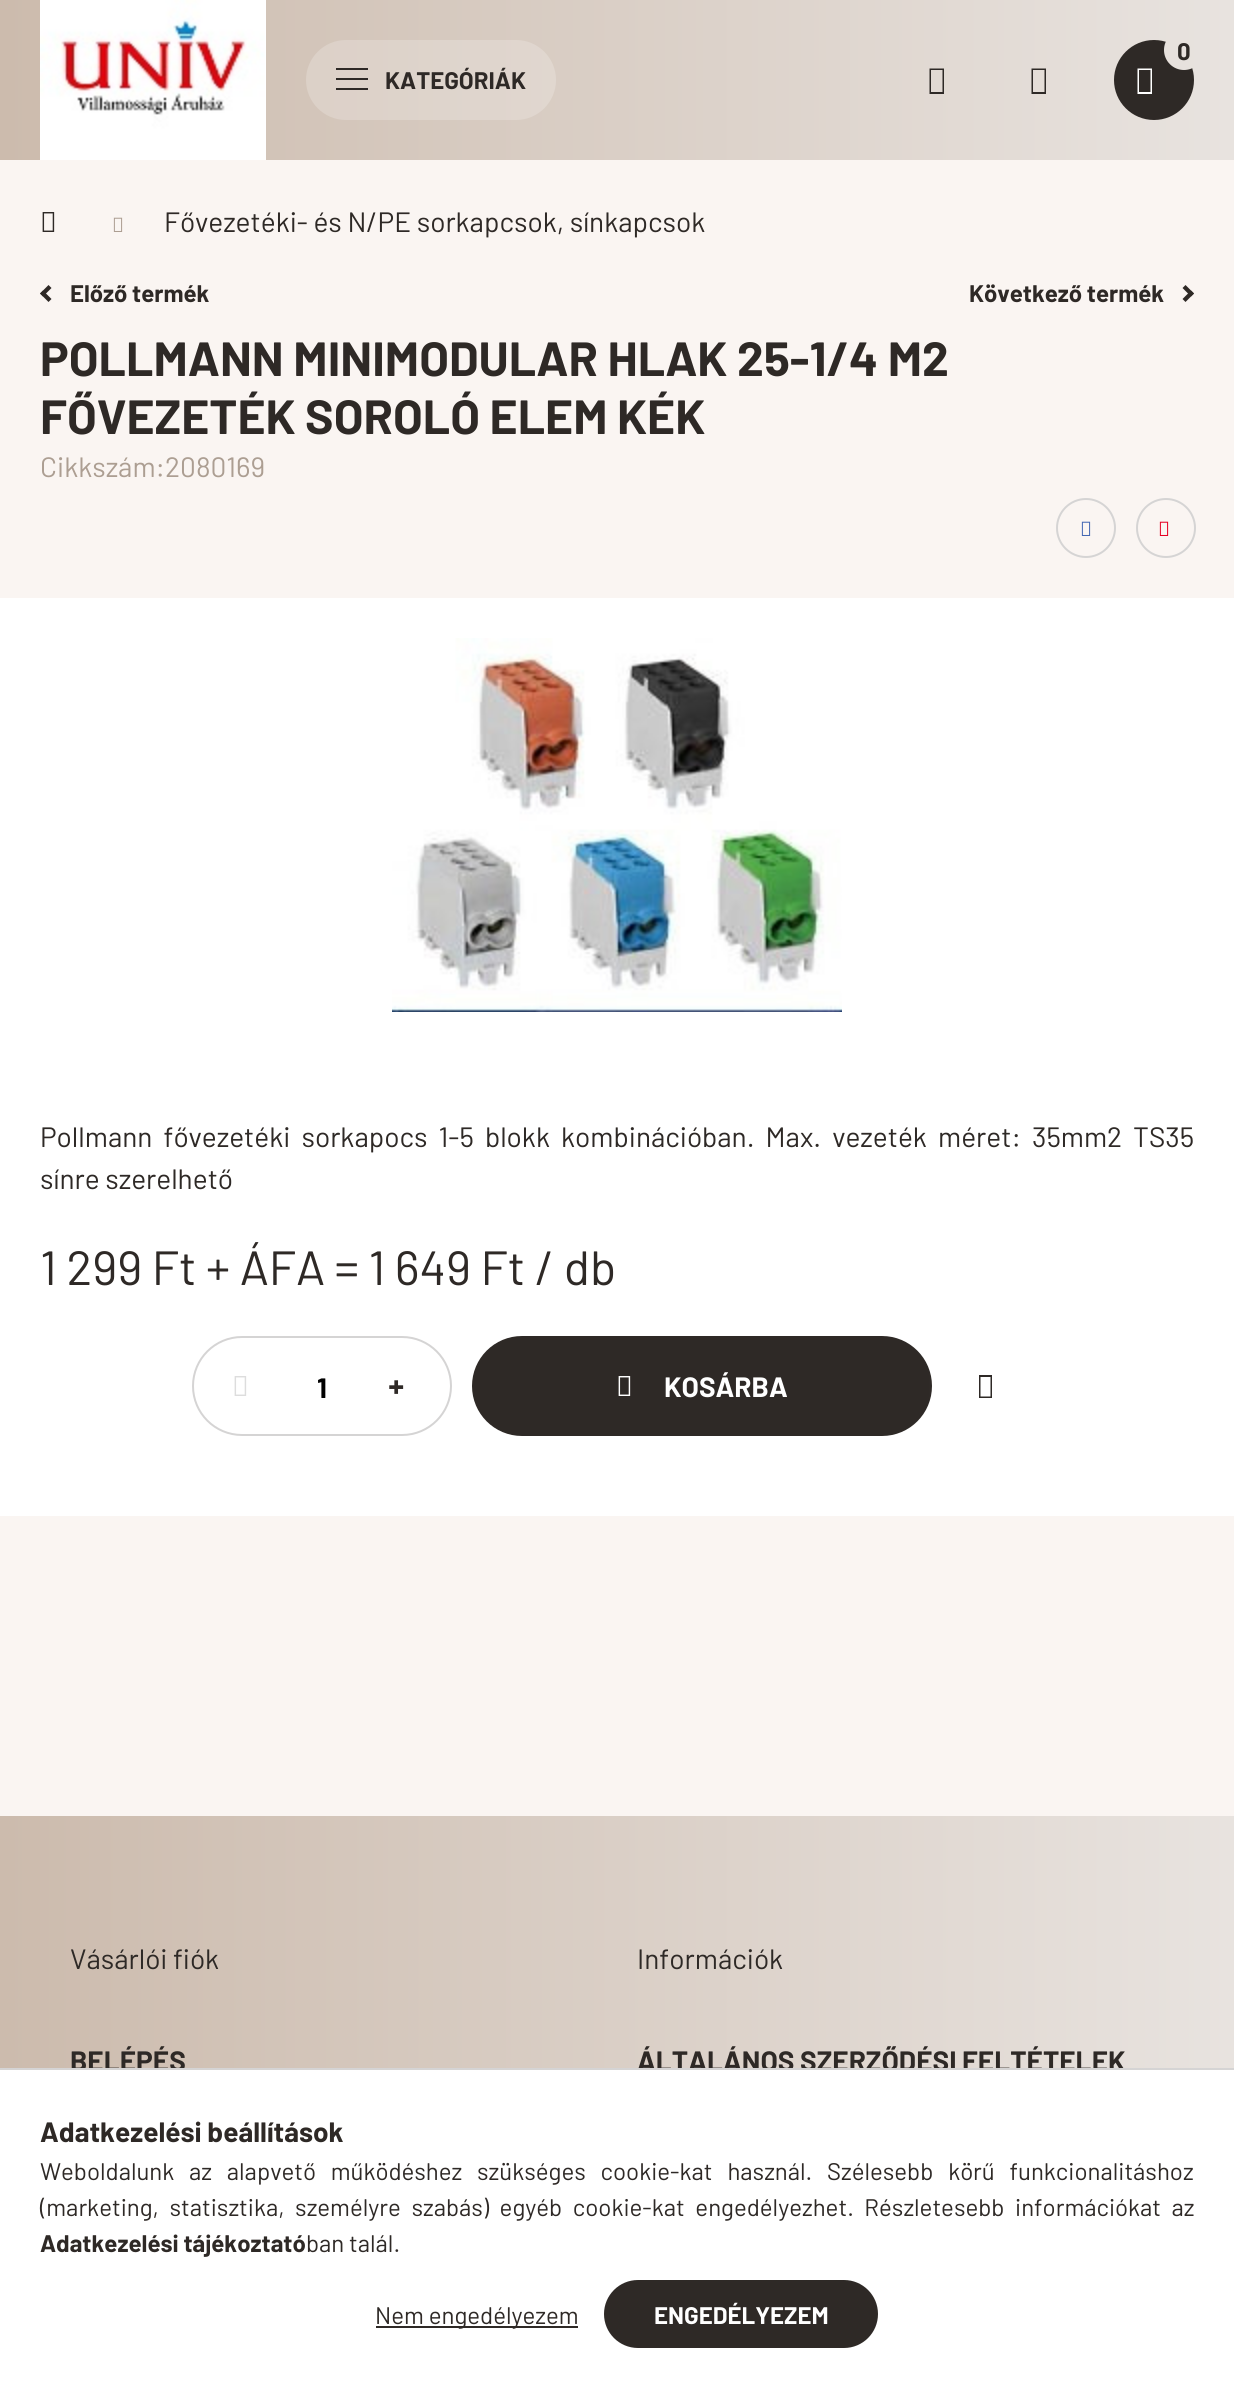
#include <cairo/cairo.h>
#include <math.h>
#include <stddef.h>

typedef struct { double x, y, w, h; unsigned color; } box_t;
static cairo_t *cr;

static void rgb(unsigned color)
{
	cairo_set_source_rgb(cr, (color >> 16) / 255.0, (color >> 8 & 255) / 255.0, (color & 255) / 255.0);
}

static void tracked(double x, double y, const char *s, double letter, double word)
{
	cairo_move_to(cr, x, y);
	while (*s) {
		char ch[5] = {0};
		int n = 0;
		do ch[n++] = *s++; while ((*s & 0xC0) == 0x80);
		cairo_show_text(cr, ch);
		cairo_rel_move_to(cr, letter + word * (*ch == ' '), 0);
	}
}

static void rrect(double x, double y, double w, double h, double r)
{
	cairo_new_sub_path(cr);
	cairo_arc(cr, x + w - r, y + h - r, r, 0, M_PI / 2);
	cairo_arc(cr, x + r, y + h - r, r, M_PI / 2, M_PI);
	cairo_arc(cr, x + r, y + r, r, M_PI, 1.5 * M_PI);
	cairo_arc(cr, x + w - r, y + r, r, 1.5 * M_PI, 2 * M_PI);
	cairo_close_path(cr);
}

static void image(const char *path, double x, double y, double w, double h)
{
	cairo_surface_t *image = cairo_image_surface_create_from_png(path);
	cairo_save(cr);
	cairo_set_source_surface(cr, image, x, y);
	cairo_rectangle(cr, x, y, w, h);
	cairo_fill(cr);
	cairo_restore(cr);
	cairo_surface_destroy(image);
}

int main(void) {
	cairo_surface_t *surface = cairo_image_surface_create(CAIRO_FORMAT_RGB24, 1234, 2387);
	cr = cairo_create(surface);
	cairo_font_options_t *options = cairo_font_options_create();
	cairo_font_options_set_hint_metrics(options, CAIRO_HINT_METRICS_OFF);
	cairo_font_options_set_hint_style(options, CAIRO_HINT_STYLE_NONE);
	cairo_set_font_options(cr, options);
	cairo_set_miter_limit(cr, 4);
	cairo_pattern_t *gradient;
	rgb(0xfaf5f2);
	cairo_paint(cr);
	gradient = cairo_pattern_create_linear(0, 1194, 1234, 1194);
	cairo_pattern_add_color_stop_rgba(gradient, 0, 0.8, 0.733, 0.678, 1);
	cairo_pattern_add_color_stop_rgba(gradient, 1, 0.91, 0.89, 0.875, 1);
	cairo_set_source(cr, gradient);
	cairo_pattern_destroy(gradient);
	cairo_rectangle(cr, 0, 0, 1234, 160);
	cairo_fill(cr);
	rgb(0x2e2926);
	cairo_arc(cr, 1154, 80, 40, 0, 2 * M_PI);
	cairo_fill(cr);
	gradient = cairo_pattern_create_linear(0, 1194, 1234, 1194);
	cairo_pattern_add_color_stop_rgba(gradient, 0, 0.8, 0.733, 0.678, 1);
	cairo_pattern_add_color_stop_rgba(gradient, 1, 0.91, 0.89, 0.875, 1);
	cairo_set_source(cr, gradient);
	cairo_pattern_destroy(gradient);
	cairo_arc(cr, 1184, 50, 20, 0, 2 * M_PI);
	cairo_fill(cr);
	rgb(0xffffff);
	cairo_new_path(cr);
	cairo_move_to(cr, 1137.5, 94);
	cairo_line_to(cr, 1137.5, 68.5);
	cairo_line_to(cr, 1152, 68.5);
	cairo_line_to(cr, 1152, 94);
	cairo_close_path(cr);
	cairo_move_to(cr, 1139, 92);
	cairo_line_to(cr, 1150.5, 92);
	cairo_line_to(cr, 1150.5, 70);
	cairo_line_to(cr, 1139, 70);
	cairo_close_path(cr);
	cairo_fill(cr);
	rgb(0x2e2926);
	cairo_new_path(cr);
	cairo_move_to(cr, 929.5, 94);
	cairo_line_to(cr, 929.5, 68.5);
	cairo_line_to(cr, 944, 68.5);
	cairo_line_to(cr, 944, 94);
	cairo_close_path(cr);
	cairo_move_to(cr, 931, 92);
	cairo_line_to(cr, 942.5, 92);
	cairo_line_to(cr, 942.5, 70);
	cairo_line_to(cr, 931, 70);
	cairo_close_path(cr);
	cairo_fill(cr);
	cairo_new_path(cr);
	cairo_move_to(cr, 1031.5, 94);
	cairo_line_to(cr, 1031.5, 68.5);
	cairo_line_to(cr, 1046, 68.5);
	cairo_line_to(cr, 1046, 94);
	cairo_close_path(cr);
	cairo_move_to(cr, 1033, 92);
	cairo_line_to(cr, 1044.5, 92);
	cairo_line_to(cr, 1044.5, 70);
	cairo_line_to(cr, 1033, 70);
	cairo_close_path(cr);
	cairo_fill(cr);
	image("img/1.png", 40, 0, 226, 160);
	cairo_set_source_rgba(cr, 1, 1, 1, 0.2);
	rrect(306, 40, 250, 80, 40);
	cairo_fill(cr);
	{
		static const box_t items[] = {
			{336, 68, 32, 2, 0x2e2926},
			{336, 78, 32, 2, 0x2e2926},
			{336, 88, 32, 2, 0x2e2926},
		};
		for (size_t i = 0; i < sizeof items / sizeof *items; i++) {
			rgb(items[i].color);
			cairo_rectangle(cr, items[i].x, items[i].y, items[i].w, items[i].h);
			cairo_fill(cr);
		}
	}
	image("img/2.png", 42, 212, 13, 20);
	image("img/3.png", 113, 217, 10, 15);
	cairo_new_path(cr);
	cairo_move_to(cr, 40, 293.5);
	cairo_line_to(cr, 48.5, 285);
	cairo_line_to(cr, 51.5, 288);
	cairo_line_to(cr, 43, 296.5);
	cairo_close_path(cr);
	cairo_fill(cr);
	cairo_new_path(cr);
	cairo_move_to(cr, 43, 290.5);
	cairo_line_to(cr, 51.5, 299);
	cairo_line_to(cr, 48.5, 302);
	cairo_line_to(cr, 40, 293.5);
	cairo_close_path(cr);
	cairo_fill(cr);
	cairo_new_path(cr);
	cairo_move_to(cr, 1182.5, 299);
	cairo_line_to(cr, 1191, 290.5);
	cairo_line_to(cr, 1194, 293.5);
	cairo_line_to(cr, 1185.5, 302);
	cairo_close_path(cr);
	cairo_fill(cr);
	cairo_new_path(cr);
	cairo_move_to(cr, 1185.5, 285);
	cairo_line_to(cr, 1194, 293.5);
	cairo_line_to(cr, 1191, 296.5);
	cairo_line_to(cr, 1182.5, 288);
	cairo_close_path(cr);
	cairo_fill(cr);
	cairo_arc(cr, 1086, 528, 29, 0, 2 * M_PI);
	rgb(0xd5d4d4);
	cairo_stroke(cr);
	image("img/4.png", 1081, 521, 10, 15);
	cairo_arc(cr, 1166, 528, 29, 0, 2 * M_PI);
	cairo_stroke(cr);
	image("img/5.png", 1159, 521, 10, 15);
	rgb(0xffffff);
	cairo_rectangle(cr, 0, 598, 1234, 918);
	cairo_fill(cr);
	image("img/6.png", 392, 638, 450, 374);
	rrect(193, 1337, 258, 98, 49);
	rgb(0xd5d4d4);
	cairo_stroke(cr);
	image("img/7.png", 234, 1376, 13, 20);
	gradient = cairo_pattern_create_linear(472, 1386, 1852, 1386);
	cairo_pattern_add_color_stop_rgba(gradient, 0.33, 0.18, 0.161, 0.149, 1);
	cairo_pattern_add_color_stop_rgba(gradient, 0.67, 0.8, 0.733, 0.678, 1);
	cairo_set_source(cr, gradient);
	cairo_pattern_destroy(gradient);
	rrect(472, 1336, 460, 100, 50);
	cairo_fill(cr);
	image("img/8.png", 618, 1376, 13, 20);
	rgb(0x2e2926);
	cairo_new_path(cr);
	cairo_move_to(cr, 979, 1398);
	cairo_line_to(cr, 979, 1375);
	cairo_line_to(cr, 992, 1375);
	cairo_line_to(cr, 992, 1398);
	cairo_close_path(cr);
	cairo_move_to(cr, 980.5, 1396.5);
	cairo_line_to(cr, 990.5, 1396.5);
	cairo_line_to(cr, 990.5, 1377);
	cairo_line_to(cr, 980.5, 1377);
	cairo_close_path(cr);
	cairo_fill(cr);
	gradient = cairo_pattern_create_linear(0, 1194, 1234, 1194);
	cairo_pattern_add_color_stop_rgba(gradient, 0, 0.8, 0.733, 0.678, 1);
	cairo_pattern_add_color_stop_rgba(gradient, 1, 0.91, 0.89, 0.875, 1);
	cairo_set_source(cr, gradient);
	cairo_pattern_destroy(gradient);
	cairo_rectangle(cr, 0, 1816, 1234, 252);
	cairo_fill(cr);
	cairo_select_font_face(cr, "Barlow", CAIRO_FONT_SLANT_NORMAL, CAIRO_FONT_WEIGHT_BOLD);
	cairo_set_font_size(cr, 24);
	rgb(0x2e2926);
	cairo_move_to(cr, 1177, 60);
	cairo_show_text(cr, "0");
	cairo_move_to(cr, 385, 89);
	cairo_show_text(cr, "KATEGÓRIÁK");
	cairo_select_font_face(cr, "Barlow", CAIRO_FONT_SLANT_NORMAL, CAIRO_FONT_WEIGHT_NORMAL);
	cairo_set_font_size(cr, 28);
	cairo_move_to(cr, 164, 232);
	cairo_show_text(cr, "Fővezetéki- és N/PE sorkapcsok, sínkapcsok");
	cairo_select_font_face(cr, "Barlow", CAIRO_FONT_SLANT_NORMAL, CAIRO_FONT_WEIGHT_BOLD);
	cairo_set_font_size(cr, 24);
	cairo_move_to(cr, 70, 302);
	cairo_show_text(cr, "Előző termék");
	cairo_move_to(cr, 969, 302);
	cairo_show_text(cr, "Következő termék");
	cairo_set_font_size(cr, 48);
	cairo_move_to(cr, 40, 376);
	cairo_show_text(cr, "POLLMANN MINIMODULAR HLAK 25-1/4 M2");
	cairo_move_to(cr, 40, 434);
	cairo_show_text(cr, "FŐVEZETÉK SOROLÓ ELEM KÉK");
	cairo_select_font_face(cr, "Barlow", CAIRO_FONT_SLANT_NORMAL, CAIRO_FONT_WEIGHT_NORMAL);
	cairo_set_font_size(cr, 28);
	rgb(0xac9e92);
	cairo_move_to(cr, 40, 477);
	cairo_show_text(cr, "Cikkszám:2080169");
	rgb(0x2e2926);
	tracked(40, 1147, "Pollmann fővezetéki sorkapocs 1-5 blokk kombinációban. Max. vezeték méret: 35mm2", 0, 5.5);
	cairo_move_to(cr, 1133, 1147);
	cairo_show_text(cr, "TS35");
	cairo_move_to(cr, 40, 1189);
	cairo_show_text(cr, "sínre szerelhető");
	cairo_set_font_size(cr, 48);
	cairo_move_to(cr, 40, 1285);
	cairo_show_text(cr, "1 299 Ft + ÁFA = 1 649 Ft / db");
	cairo_select_font_face(cr, "Barlow", CAIRO_FONT_SLANT_NORMAL, CAIRO_FONT_WEIGHT_BOLD);
	cairo_set_font_size(cr, 28);
	rgb(0x000000);
	cairo_move_to(cr, 317, 1398);
	cairo_show_text(cr, "1");
	cairo_select_font_face(cr, "Noto Sans Black", CAIRO_FONT_SLANT_NORMAL, CAIRO_FONT_WEIGHT_NORMAL);
	rgb(0x2e2926);
	cairo_move_to(cr, 388, 1397);
	cairo_show_text(cr, "+");
	cairo_select_font_face(cr, "Barlow", CAIRO_FONT_SLANT_NORMAL, CAIRO_FONT_WEIGHT_BOLD);
	rgb(0xffffff);
	cairo_move_to(cr, 664, 1397);
	cairo_show_text(cr, "KOSÁRBA");
	cairo_select_font_face(cr, "Barlow", CAIRO_FONT_SLANT_NORMAL, CAIRO_FONT_WEIGHT_NORMAL);
	rgb(0x2e2926);
	cairo_move_to(cr, 70, 1969);
	cairo_show_text(cr, "Vásárlói fiók");
	cairo_select_font_face(cr, "Barlow", CAIRO_FONT_SLANT_NORMAL, CAIRO_FONT_WEIGHT_BOLD);
	cairo_move_to(cr, 70, 2071);
	cairo_show_text(cr, "BELÉPÉS");
	cairo_select_font_face(cr, "Barlow", CAIRO_FONT_SLANT_NORMAL, CAIRO_FONT_WEIGHT_NORMAL);
	cairo_move_to(cr, 637, 1969);
	cairo_show_text(cr, "Információk");
	cairo_select_font_face(cr, "Barlow", CAIRO_FONT_SLANT_NORMAL, CAIRO_FONT_WEIGHT_BOLD);
	cairo_move_to(cr, 637, 2071);
	cairo_show_text(cr, "ÁLTALÁNOS SZERZŐDÉSI FELTÉTELEK");
	rgb(0xffffff);
	cairo_rectangle(cr, 0, 2070, 1234, 317);
	cairo_fill(cr);
	rgb(0xd5d4d4);
	cairo_rectangle(cr, 0, 2068, 1234, 2);
	cairo_fill(cr);
	rgb(0x2e2926);
	cairo_move_to(cr, 40, 2142);
	cairo_show_text(cr, "Adatkezelési beállítások");
	cairo_select_font_face(cr, "Barlow", CAIRO_FONT_SLANT_NORMAL, CAIRO_FONT_WEIGHT_NORMAL);
	cairo_set_font_size(cr, 24);
	tracked(40, 2180, "Weboldalunk az alapvető működéshez szükséges cookie-kat használ. Szélesebb körű funkcionalitáshoz", 0, 10);
	tracked(40, 2216, "(marketing, statisztika, személyre szabás) egyéb cookie-kat engedélyezhet. Részletesebb információkat az", 0, 5.75);
	cairo_select_font_face(cr, "Barlow", CAIRO_FONT_SLANT_NORMAL, CAIRO_FONT_WEIGHT_BOLD);
	cairo_move_to(cr, 40, 2252);
	cairo_show_text(cr, "Adatkezelési tájékoztató");
	cairo_select_font_face(cr, "Barlow", CAIRO_FONT_SLANT_NORMAL, CAIRO_FONT_WEIGHT_NORMAL);
	cairo_move_to(cr, 306, 2252);
	cairo_show_text(cr, "ban talál.");
	cairo_rectangle(cr, 376, 2326, 202, 2);
	cairo_fill(cr);
	cairo_move_to(cr, 375, 2324);
	cairo_show_text(cr, "Nem engedélyezem");
	gradient = cairo_pattern_create_linear(604, 2314, 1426, 2314);
	cairo_pattern_add_color_stop_rgba(gradient, 0.33, 0.18, 0.161, 0.149, 1);
	cairo_pattern_add_color_stop_rgba(gradient, 0.67, 0.8, 0.733, 0.678, 1);
	cairo_set_source(cr, gradient);
	cairo_pattern_destroy(gradient);
	rrect(604, 2280, 274, 68, 34);
	cairo_fill(cr);
	cairo_select_font_face(cr, "Barlow", CAIRO_FONT_SLANT_NORMAL, CAIRO_FONT_WEIGHT_BOLD);
	rgb(0xffffff);
	cairo_move_to(cr, 654, 2324);
	cairo_show_text(cr, "ENGEDÉLYEZEM");
	cairo_surface_write_to_png(surface, "page.png");
	cairo_font_options_destroy(options);
	cairo_destroy(cr);
	cairo_surface_destroy(surface);
	return 0;
}
